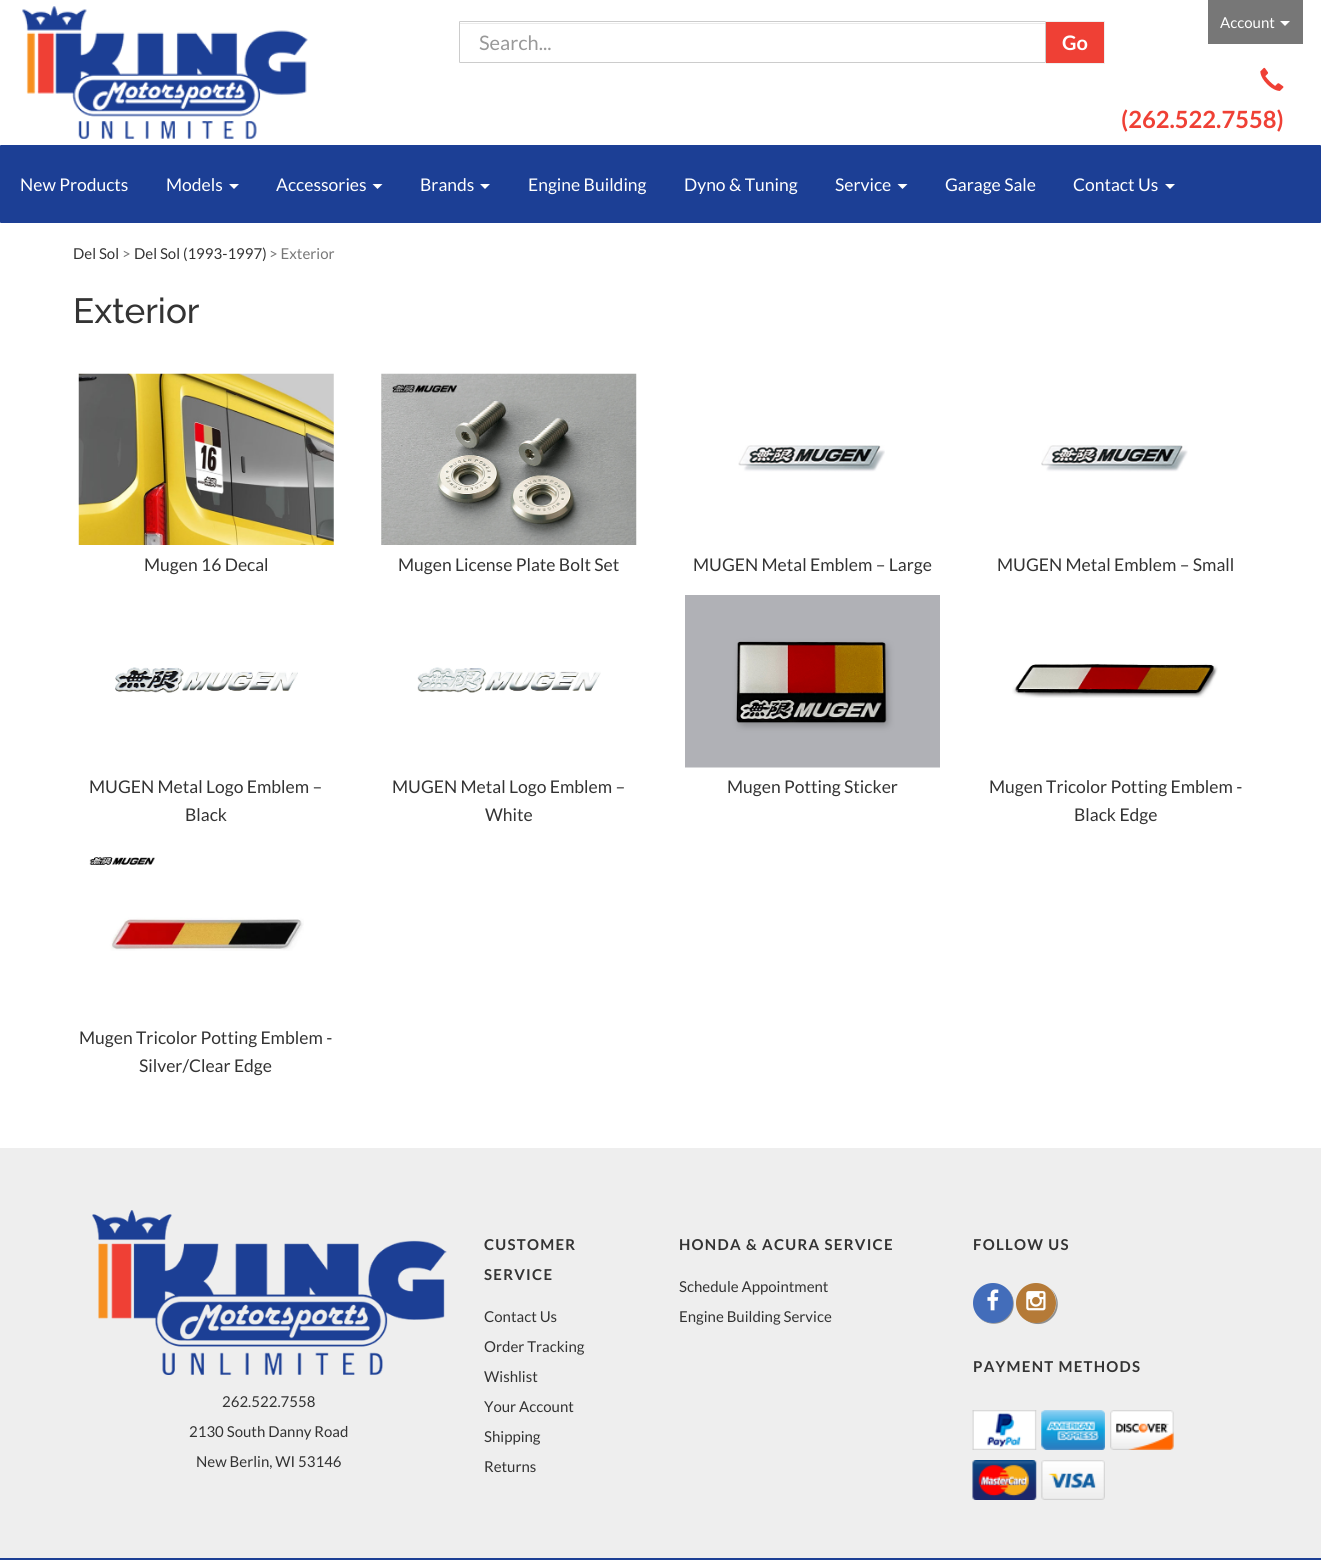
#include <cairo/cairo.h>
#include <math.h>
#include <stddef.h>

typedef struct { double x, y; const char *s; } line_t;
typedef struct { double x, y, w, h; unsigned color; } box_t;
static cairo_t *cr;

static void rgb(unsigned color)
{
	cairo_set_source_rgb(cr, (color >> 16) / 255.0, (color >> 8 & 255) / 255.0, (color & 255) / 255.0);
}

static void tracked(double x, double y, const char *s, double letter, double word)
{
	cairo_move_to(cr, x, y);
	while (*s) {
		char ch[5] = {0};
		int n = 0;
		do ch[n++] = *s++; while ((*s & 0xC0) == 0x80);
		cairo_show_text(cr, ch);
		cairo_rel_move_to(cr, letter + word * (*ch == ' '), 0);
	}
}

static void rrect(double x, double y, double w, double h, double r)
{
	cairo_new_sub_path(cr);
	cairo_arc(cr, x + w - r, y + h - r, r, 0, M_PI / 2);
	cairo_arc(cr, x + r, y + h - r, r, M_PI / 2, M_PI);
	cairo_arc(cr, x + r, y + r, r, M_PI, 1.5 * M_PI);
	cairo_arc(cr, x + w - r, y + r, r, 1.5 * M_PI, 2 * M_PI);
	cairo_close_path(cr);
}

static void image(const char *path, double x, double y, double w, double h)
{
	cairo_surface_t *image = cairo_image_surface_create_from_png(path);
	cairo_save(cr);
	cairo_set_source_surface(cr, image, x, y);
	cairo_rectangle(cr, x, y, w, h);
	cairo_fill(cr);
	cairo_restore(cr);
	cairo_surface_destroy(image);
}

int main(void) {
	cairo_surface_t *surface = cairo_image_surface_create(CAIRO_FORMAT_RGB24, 1321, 1560);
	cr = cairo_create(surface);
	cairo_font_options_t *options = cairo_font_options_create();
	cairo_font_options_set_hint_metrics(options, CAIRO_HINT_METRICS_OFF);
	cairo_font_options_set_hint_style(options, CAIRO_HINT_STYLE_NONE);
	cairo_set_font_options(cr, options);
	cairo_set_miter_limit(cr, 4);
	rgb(0xffffff);
	cairo_paint(cr);
	image("img/1.png", 22, 6, 286, 133);
	rgb(0xeaeaea);
	cairo_rectangle(cr, 460, 23, 585, 1);
	cairo_fill(cr);
	rrect(459.5, 21.5, 586, 41, 0.5);
	rgb(0xcccccc);
	cairo_set_line_width(cr, 1);
	cairo_stroke(cr);
	{
		static const box_t items[] = {
			{1046, 22, 58, 41, 0xef4035},
			{1046, 21, 59, 1, 0xefefef},
			{1104, 21, 1, 43, 0xefefef},
			{1046, 63, 59, 1, 0xefefef},
			{1208, 0, 95, 44, 0x777777},
		};
		for (size_t i = 0; i < sizeof items / sizeof *items; i++) {
			rgb(items[i].color);
			cairo_rectangle(cr, items[i].x, items[i].y, items[i].w, items[i].h);
			cairo_fill(cr);
		}
	}
	rgb(0xffffff);
	cairo_new_path(cr);
	cairo_move_to(cr, 1280, 21);
	cairo_line_to(cr, 1290, 21);
	cairo_line_to(cr, 1285, 26);
	cairo_close_path(cr);
	cairo_fill(cr);
	image("img/2.png", 1260, 67, 24, 24);
	rgb(0x1c3f95);
	rrect(0.5, 145.5, 1320, 77, 0.5);
	cairo_fill_preserve(cr);
	cairo_stroke(cr);
	rgb(0xffffff);
	cairo_new_path(cr);
	cairo_move_to(cr, 229, 184);
	cairo_line_to(cr, 239, 184);
	cairo_line_to(cr, 234, 189);
	cairo_close_path(cr);
	cairo_fill(cr);
	cairo_new_path(cr);
	cairo_move_to(cr, 372.5, 184);
	cairo_line_to(cr, 382.5, 184);
	cairo_line_to(cr, 377.5, 189);
	cairo_close_path(cr);
	cairo_fill(cr);
	cairo_new_path(cr);
	cairo_move_to(cr, 480, 184);
	cairo_line_to(cr, 490, 184);
	cairo_line_to(cr, 485, 189);
	cairo_close_path(cr);
	cairo_fill(cr);
	cairo_new_path(cr);
	cairo_move_to(cr, 897.5, 184);
	cairo_line_to(cr, 907.5, 184);
	cairo_line_to(cr, 902.5, 189);
	cairo_close_path(cr);
	cairo_fill(cr);
	cairo_new_path(cr);
	cairo_move_to(cr, 1165, 184);
	cairo_line_to(cr, 1175, 184);
	cairo_line_to(cr, 1170, 189);
	cairo_close_path(cr);
	cairo_fill(cr);
	image("img/3.png", 78, 373, 256, 172);
	image("img/4.png", 381, 373, 256, 172);
	image("img/5.png", 738, 445, 147, 27);
	image("img/6.png", 1041, 445, 147, 27);
	image("img/7.png", 115, 667, 183, 26);
	image("img/8.png", 417, 667, 184, 26);
	image("img/9.png", 685, 595, 255, 173);
	image("img/10.png", 1012, 663, 206, 35);
	image("img/11.png", 89, 857, 215, 94);
	rgb(0xeeeeee);
	cairo_rectangle(cr, 0, 1148, 1321, 410);
	cairo_fill(cr);
	rgb(0x8f8f8f);
	cairo_new_path(cr);
	cairo_move_to(cr, 979, 1317.5);
	cairo_curve_to(cr, 986.5, 1325.5, 1000, 1326, 1008, 1318);
	cairo_curve_to(cr, 1016, 1310, 1015.5, 1296.5, 1007.5, 1289);
	cairo_curve_to(cr, 1014.5, 1297, 1014, 1309, 1006.5, 1316.5);
	cairo_curve_to(cr, 999, 1324, 987, 1324.5, 979, 1317.5);
	cairo_close_path(cr);
	cairo_fill(cr);
	rgb(0x436dba);
	cairo_arc(cr, 993, 1303, 20, 0, 2 * M_PI);
	cairo_fill(cr);
	image("img/12.png", 987, 1289, 12, 22);
	rgb(0x8f8f8f);
	cairo_new_path(cr);
	cairo_move_to(cr, 1024, 1318.5);
	cairo_curve_to(cr, 1032, 1326, 1044.5, 1326, 1052, 1318);
	cairo_curve_to(cr, 1060.5, 1309.5, 1059.5, 1295.5, 1050, 1288);
	cairo_curve_to(cr, 1058, 1295.5, 1058.5, 1309, 1050.5, 1316.5);
	cairo_curve_to(cr, 1043.5, 1323.5, 1032, 1324.5, 1024, 1318.5);
	cairo_close_path(cr);
	cairo_fill(cr);
	rgb(0xb57a37);
	cairo_arc(cr, 1036, 1303, 20, 0, 2 * M_PI);
	cairo_fill(cr);
	image("img/13.png", 1026, 1291, 20, 20);
	image("img/14.png", 972, 1410, 65, 40);
	image("img/15.png", 1041, 1410, 64, 40);
	image("img/16.png", 1110, 1410, 64, 40);
	image("img/17.png", 972, 1460, 65, 40);
	image("img/18.png", 1041, 1460, 64, 40);
	image("img/19.png", 92, 1210, 355, 165);
	rgb(0x1c3f95);
	cairo_rectangle(cr, 0, 1558, 1321, 2);
	cairo_fill(cr);
	cairo_select_font_face(cr, "Lato", CAIRO_FONT_SLANT_NORMAL, CAIRO_FONT_WEIGHT_NORMAL);
	cairo_set_font_size(cr, 20);
	rgb(0x999999);
	cairo_move_to(cr, 479, 50);
	cairo_show_text(cr, "Search...");
	cairo_select_font_face(cr, "Lato", CAIRO_FONT_SLANT_NORMAL, CAIRO_FONT_WEIGHT_BOLD);
	rgb(0xffffff);
	cairo_move_to(cr, 1062, 50);
	cairo_show_text(cr, "Go");
	cairo_select_font_face(cr, "Lato", CAIRO_FONT_SLANT_NORMAL, CAIRO_FONT_WEIGHT_NORMAL);
	cairo_set_font_size(cr, 15);
	cairo_move_to(cr, 1220, 28);
	cairo_show_text(cr, "Account");
	cairo_select_font_face(cr, "Lato", CAIRO_FONT_SLANT_NORMAL, CAIRO_FONT_WEIGHT_BOLD);
	cairo_set_font_size(cr, 23.75);
	rgb(0xef4035);
	cairo_move_to(cr, 1121, 128);
	cairo_show_text(cr, "(262.522.7558)");
	cairo_select_font_face(cr, "Lato", CAIRO_FONT_SLANT_NORMAL, CAIRO_FONT_WEIGHT_NORMAL);
	cairo_set_font_size(cr, 17.5);
	rgb(0xffffff);
	{
		static const line_t items[] = {
			{20, 191, "New Products"},
			{166, 191, "Models"},
			{276, 191, "Accessories"},
			{420, 191, "Brands"},
			{528, 191, "Engine Building"},
			{684, 191, "Dyno & Tuning"},
			{835, 191, "Service"},
			{945, 191, "Garage Sale"},
			{1073, 191, "Contact Us"},
		};
		for (size_t i = 0; i < sizeof items / sizeof *items; i++) {
			cairo_move_to(cr, items[i].x, items[i].y);
			cairo_show_text(cr, items[i].s);
		}
	}
	cairo_set_font_size(cr, 15);
	rgb(0x333333);
	cairo_move_to(cr, 73, 259);
	cairo_show_text(cr, "Del Sol");
	rgb(0x777777);
	cairo_move_to(cr, 122, 259);
	cairo_show_text(cr, ">");
	rgb(0x333333);
	cairo_move_to(cr, 134, 259);
	cairo_show_text(cr, "Del Sol (1993-1997)");
	rgb(0x777777);
	cairo_move_to(cr, 269, 259);
	cairo_show_text(cr, "> Exterior");
	cairo_select_font_face(cr, "Raleway Medium", CAIRO_FONT_SLANT_NORMAL, CAIRO_FONT_WEIGHT_NORMAL);
	cairo_set_font_size(cr, 35);
	rgb(0x333333);
	cairo_move_to(cr, 73, 323);
	cairo_show_text(cr, "Exterior");
	cairo_select_font_face(cr, "Lato", CAIRO_FONT_SLANT_NORMAL, CAIRO_FONT_WEIGHT_NORMAL);
	cairo_set_font_size(cr, 17.5);
	{
		static const line_t items[] = {
			{144, 571, "Mugen 16 Decal"},
			{398, 571, "Mugen License Plate Bolt Set"},
			{693, 571, "MUGEN Metal Emblem – Large"},
			{997, 571, "MUGEN Metal Emblem – Small"},
			{89, 793, "MUGEN Metal Logo Emblem –"},
			{185, 821, "Black"},
			{392, 793, "MUGEN Metal Logo Emblem –"},
			{485, 821, "White"},
			{727, 793, "Mugen Potting Sticker"},
			{989, 793, "Mugen Tricolor Potting Emblem -"},
			{1074, 821, "Black Edge"},
			{79, 1044, "Mugen Tricolor Potting Emblem -"},
			{139, 1072, "Silver/Clear Edge"},
		};
		for (size_t i = 0; i < sizeof items / sizeof *items; i++) {
			cairo_move_to(cr, items[i].x, items[i].y);
			cairo_show_text(cr, items[i].s);
		}
	}
	cairo_select_font_face(cr, "Lato", CAIRO_FONT_SLANT_NORMAL, CAIRO_FONT_WEIGHT_BOLD);
	cairo_set_font_size(cr, 15);
	tracked(484, 1250, "CUSTOMER", 1.25, 0);
	tracked(484, 1280, "SERVICE", 1.25, 0);
	cairo_select_font_face(cr, "Lato", CAIRO_FONT_SLANT_NORMAL, CAIRO_FONT_WEIGHT_NORMAL);
	{
		static const line_t items[] = {
			{484, 1322, "Contact Us"},
			{484, 1352, "Order Tracking"},
			{484, 1382, "Wishlist"},
			{484, 1412, "Your Account"},
			{484, 1442, "Shipping"},
			{484, 1472, "Returns"},
		};
		for (size_t i = 0; i < sizeof items / sizeof *items; i++) {
			cairo_move_to(cr, items[i].x, items[i].y);
			cairo_show_text(cr, items[i].s);
		}
	}
	cairo_select_font_face(cr, "Lato", CAIRO_FONT_SLANT_NORMAL, CAIRO_FONT_WEIGHT_BOLD);
	tracked(679, 1250, "HONDA & ACURA SERVICE", 1.25, 0);
	cairo_select_font_face(cr, "Lato", CAIRO_FONT_SLANT_NORMAL, CAIRO_FONT_WEIGHT_NORMAL);
	cairo_move_to(cr, 679, 1292);
	cairo_show_text(cr, "Schedule Appointment");
	cairo_move_to(cr, 679, 1322);
	cairo_show_text(cr, "Engine Building Service");
	cairo_select_font_face(cr, "Lato", CAIRO_FONT_SLANT_NORMAL, CAIRO_FONT_WEIGHT_BOLD);
	tracked(973, 1250, "FOLLOW US", 1.25, 0);
	tracked(973, 1372, "PAYMENT METHODS", 1.25, 0);
	cairo_select_font_face(cr, "Lato", CAIRO_FONT_SLANT_NORMAL, CAIRO_FONT_WEIGHT_NORMAL);
	{
		static const line_t items[] = {
			{222, 1407, "262.522.7558"},
			{189, 1437, "2130 South Danny Road"},
			{196, 1467, "New Berlin, WI 53146"},
		};
		for (size_t i = 0; i < sizeof items / sizeof *items; i++) {
			cairo_move_to(cr, items[i].x, items[i].y);
			cairo_show_text(cr, items[i].s);
		}
	}
	cairo_surface_write_to_png(surface, "page.png");
	cairo_font_options_destroy(options);
	cairo_destroy(cr);
	cairo_surface_destroy(surface);
	return 0;
}
